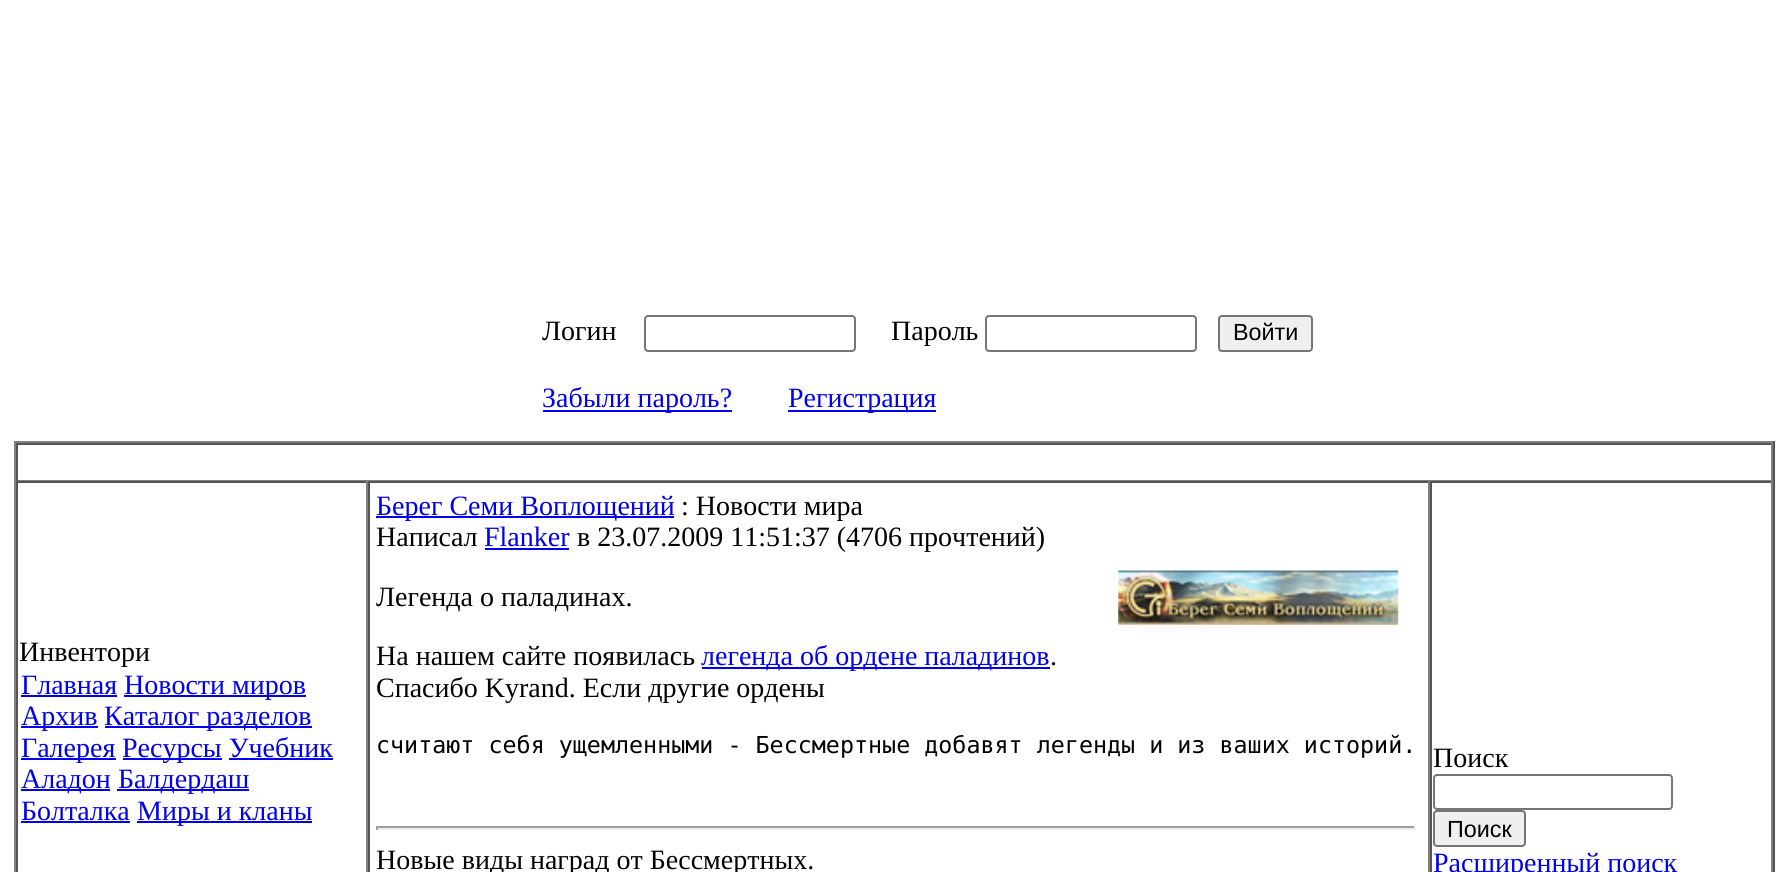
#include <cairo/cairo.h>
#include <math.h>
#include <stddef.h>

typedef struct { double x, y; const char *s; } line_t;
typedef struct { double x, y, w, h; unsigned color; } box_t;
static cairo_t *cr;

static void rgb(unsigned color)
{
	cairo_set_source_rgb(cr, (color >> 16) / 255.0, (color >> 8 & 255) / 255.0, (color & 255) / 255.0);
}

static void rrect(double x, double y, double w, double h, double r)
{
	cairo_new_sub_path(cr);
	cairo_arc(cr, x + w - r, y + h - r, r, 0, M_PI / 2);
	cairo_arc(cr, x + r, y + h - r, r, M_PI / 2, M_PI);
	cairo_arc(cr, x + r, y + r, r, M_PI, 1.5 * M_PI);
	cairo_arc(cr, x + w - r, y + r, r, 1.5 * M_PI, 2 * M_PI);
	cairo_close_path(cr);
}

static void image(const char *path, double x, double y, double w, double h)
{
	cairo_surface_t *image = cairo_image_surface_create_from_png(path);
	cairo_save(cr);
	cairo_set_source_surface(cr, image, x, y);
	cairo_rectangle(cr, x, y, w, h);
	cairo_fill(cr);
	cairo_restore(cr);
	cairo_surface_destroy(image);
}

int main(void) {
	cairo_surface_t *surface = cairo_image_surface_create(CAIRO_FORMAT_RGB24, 1788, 872);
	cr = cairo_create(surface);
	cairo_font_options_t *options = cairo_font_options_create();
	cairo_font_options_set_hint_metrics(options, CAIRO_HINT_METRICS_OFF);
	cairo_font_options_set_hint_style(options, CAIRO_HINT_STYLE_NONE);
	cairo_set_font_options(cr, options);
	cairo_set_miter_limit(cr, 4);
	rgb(0xffffff);
	cairo_paint(cr);
	rrect(645, 316, 210, 35, 3);
	rgb(0x767676);
	cairo_stroke(cr);
	rrect(986, 316, 210, 35, 3);
	cairo_stroke(cr);
	rgb(0xefefef);
	rrect(1219, 316, 93, 35, 3);
	cairo_fill_preserve(cr);
	rgb(0x767676);
	cairo_stroke(cr);
	{
		static const box_t items[] = {
			{543, 410, 189, 2, 0x0000ee},
			{788, 410, 148, 2, 0x0000ee},
			{14, 441, 1761, 2, 0x808080},
			{1773, 441, 2, 431, 0x555555},
			{14, 441, 2, 431, 0x808080},
			{16, 443, 1757, 2, 0x555555},
			{1771, 443, 2, 38, 0x808080},
			{16, 480, 1757, 1, 0x808080},
			{16, 443, 2, 38, 0x555555},
			{16, 481, 1757, 2, 0x555555},
			{366, 481, 2, 391, 0x808080},
			{16, 481, 2, 391, 0x555555},
			{21, 695, 96, 2, 0x0000ee},
			{124, 695, 182, 2, 0x0000ee},
			{21, 726, 77, 2, 0x0000ee},
			{105, 726, 207, 2, 0x0000ee},
			{21, 758, 95, 2, 0x0000ee},
			{123, 758, 99, 2, 0x0000ee},
			{229, 758, 104, 2, 0x0000ee},
			{21, 789, 89, 2, 0x0000ee},
			{117, 789, 132, 2, 0x0000ee},
			{21, 821, 109, 2, 0x0000ee},
			{137, 821, 175, 2, 0x0000ee},
			{1428, 481, 2, 391, 0x808080},
			{368, 481, 2, 391, 0x555555},
			{376, 516, 298, 2, 0x0000ee},
			{485, 548, 84, 2, 0x0000ee},
		};
		for (size_t i = 0; i < sizeof items / sizeof *items; i++) {
			rgb(items[i].color);
			cairo_rectangle(cr, items[i].x, items[i].y, items[i].w, items[i].h);
			cairo_fill(cr);
		}
	}
	image("img/1.png", 1118, 570, 281, 55);
	{
		static const box_t items[] = {
			{702, 667, 348, 2, 0x0000ee},
			{376, 826, 1040, 2, 0x9f9f9f},
			{1414, 826, 2, 4, 0xeeeeee},
			{376, 828, 1040, 2, 0xeeeeee},
			{376, 826, 2, 4, 0x9f9f9f},
			{1771, 481, 2, 391, 0x808080},
			{1430, 481, 2, 391, 0x555555},
		};
		for (size_t i = 0; i < sizeof items / sizeof *items; i++) {
			rgb(items[i].color);
			cairo_rectangle(cr, items[i].x, items[i].y, items[i].w, items[i].h);
			cairo_fill(cr);
		}
	}
	rrect(1434, 775, 238, 34, 3);
	rgb(0x767676);
	cairo_stroke(cr);
	rgb(0xefefef);
	rrect(1434, 811, 91, 35, 3);
	cairo_fill_preserve(cr);
	rgb(0x767676);
	cairo_stroke(cr);
	cairo_select_font_face(cr, "Liberation Serif", CAIRO_FONT_SLANT_NORMAL, CAIRO_FONT_WEIGHT_NORMAL);
	cairo_set_font_size(cr, 28);
	rgb(0x000000);
	cairo_move_to(cr, 542, 340);
	cairo_show_text(cr, "Логин");
	cairo_move_to(cr, 891, 340);
	cairo_show_text(cr, "Пароль");
	cairo_select_font_face(cr, "Liberation Sans", CAIRO_FONT_SLANT_NORMAL, CAIRO_FONT_WEIGHT_NORMAL);
	cairo_set_font_size(cr, 23.35);
	cairo_move_to(cr, 1233, 340);
	cairo_show_text(cr, "Войти");
	cairo_select_font_face(cr, "Liberation Serif", CAIRO_FONT_SLANT_NORMAL, CAIRO_FONT_WEIGHT_NORMAL);
	cairo_set_font_size(cr, 28);
	rgb(0x0000ee);
	cairo_move_to(cr, 542, 407);
	cairo_show_text(cr, "Забыли пароль?");
	cairo_move_to(cr, 788, 407);
	cairo_show_text(cr, "Регистрация");
	rgb(0x000000);
	cairo_move_to(cr, 19, 661);
	cairo_show_text(cr, "Инвентори");
	rgb(0x0000ee);
	{
		static const line_t items[] = {
			{21, 694, "Главная"},
			{124, 694, "Новости миров"},
			{21, 725, "Архив"},
			{104, 725, "Каталог разделов"},
			{21, 757, "Галерея"},
			{122, 757, "Ресурсы Учебник"},
			{21, 788, "Аладон"},
			{118, 788, "Балдердаш"},
			{21, 820, "Болталка"},
			{137, 820, "Миры и кланы"},
			{376, 515, "Берег Семи Воплощений"},
		};
		for (size_t i = 0; i < sizeof items / sizeof *items; i++) {
			cairo_move_to(cr, items[i].x, items[i].y);
			cairo_show_text(cr, items[i].s);
		}
	}
	rgb(0x000000);
	cairo_move_to(cr, 681, 515);
	cairo_show_text(cr, ": Новости мира");
	cairo_move_to(cr, 376, 546);
	cairo_show_text(cr, "Написал");
	rgb(0x0000ee);
	cairo_move_to(cr, 484, 546);
	cairo_show_text(cr, "Flanker");
	rgb(0x000000);
	{
		static const line_t items[] = {
			{577, 546, "в 23.07.2009 11:51:37 (4706 прочтений)"},
			{376, 606, "Легенда о паладинах."},
			{376, 665, "На нашем сайте появилась"},
		};
		for (size_t i = 0; i < sizeof items / sizeof *items; i++) {
			cairo_move_to(cr, items[i].x, items[i].y);
			cairo_show_text(cr, items[i].s);
		}
	}
	rgb(0x0000ee);
	cairo_move_to(cr, 701, 665);
	cairo_show_text(cr, "легенда об ордене паладинов");
	rgb(0x000000);
	cairo_move_to(cr, 1050, 665);
	cairo_show_text(cr, ".");
	cairo_move_to(cr, 376, 697);
	cairo_show_text(cr, "Спасибо Kyrand. Если другие ордены");
	cairo_select_font_face(cr, "DejaVu Sans Mono", CAIRO_FONT_SLANT_NORMAL, CAIRO_FONT_WEIGHT_NORMAL);
	cairo_set_font_size(cr, 23.35);
	cairo_move_to(cr, 376, 753);
	cairo_show_text(cr, "считают себя ущемленными - Бессмертные добавят легенды и из ваших историй.");
	cairo_select_font_face(cr, "Liberation Serif", CAIRO_FONT_SLANT_NORMAL, CAIRO_FONT_WEIGHT_NORMAL);
	cairo_set_font_size(cr, 28);
	cairo_move_to(cr, 376, 869);
	cairo_show_text(cr, "Новые виды наград от Бессмертных.");
	cairo_move_to(cr, 1433, 767);
	cairo_show_text(cr, "Поиск");
	cairo_select_font_face(cr, "Liberation Sans", CAIRO_FONT_SLANT_NORMAL, CAIRO_FONT_WEIGHT_NORMAL);
	cairo_set_font_size(cr, 23.35);
	cairo_move_to(cr, 1447, 837);
	cairo_show_text(cr, "Поиск");
	cairo_select_font_face(cr, "Liberation Serif", CAIRO_FONT_SLANT_NORMAL, CAIRO_FONT_WEIGHT_NORMAL);
	cairo_set_font_size(cr, 28);
	rgb(0x0000ee);
	cairo_move_to(cr, 1433, 872);
	cairo_show_text(cr, "Расширенный поиск");
	cairo_surface_write_to_png(surface, "page.png");
	cairo_font_options_destroy(options);
	cairo_destroy(cr);
	cairo_surface_destroy(surface);
	return 0;
}
